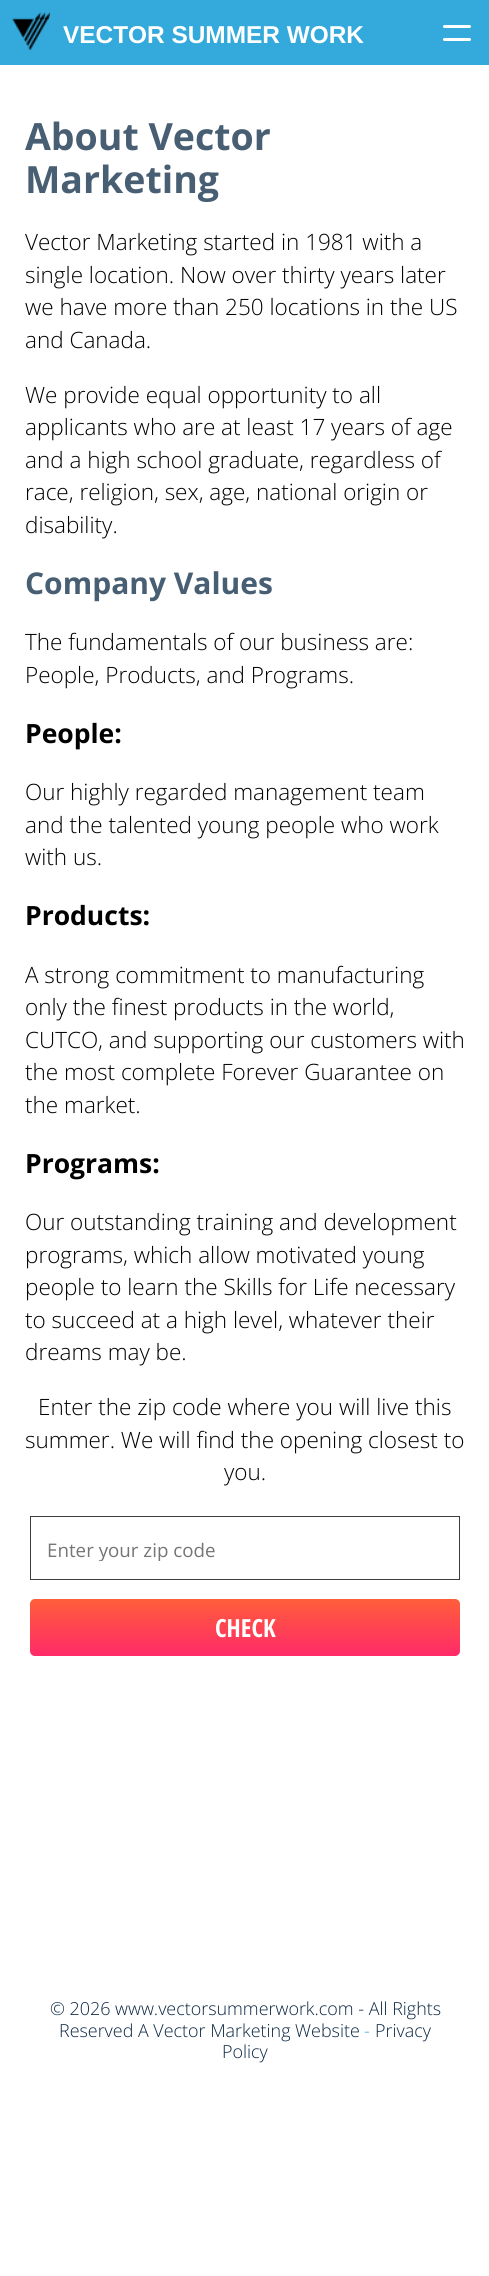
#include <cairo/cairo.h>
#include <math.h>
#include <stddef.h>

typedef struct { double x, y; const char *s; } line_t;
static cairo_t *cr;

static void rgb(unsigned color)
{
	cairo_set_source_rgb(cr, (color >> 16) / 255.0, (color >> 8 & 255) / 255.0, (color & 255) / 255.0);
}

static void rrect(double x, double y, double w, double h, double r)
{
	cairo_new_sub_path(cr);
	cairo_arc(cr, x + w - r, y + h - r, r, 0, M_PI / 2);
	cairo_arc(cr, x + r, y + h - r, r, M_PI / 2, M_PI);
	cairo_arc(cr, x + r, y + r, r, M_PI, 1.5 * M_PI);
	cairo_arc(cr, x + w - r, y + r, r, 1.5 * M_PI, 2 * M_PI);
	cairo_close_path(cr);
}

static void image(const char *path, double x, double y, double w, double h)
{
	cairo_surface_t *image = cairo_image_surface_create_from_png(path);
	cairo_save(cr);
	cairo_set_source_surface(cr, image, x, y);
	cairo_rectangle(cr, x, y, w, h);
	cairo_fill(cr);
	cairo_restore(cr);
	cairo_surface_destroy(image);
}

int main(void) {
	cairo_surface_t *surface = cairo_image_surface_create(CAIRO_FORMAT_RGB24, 489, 2276);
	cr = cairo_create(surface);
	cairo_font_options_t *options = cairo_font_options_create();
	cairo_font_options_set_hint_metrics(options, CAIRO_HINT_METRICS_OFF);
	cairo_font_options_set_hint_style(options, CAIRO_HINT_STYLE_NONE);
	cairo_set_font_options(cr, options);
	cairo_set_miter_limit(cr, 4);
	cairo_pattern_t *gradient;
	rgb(0xffffff);
	cairo_paint(cr);
	rgb(0x34aadc);
	cairo_rectangle(cr, 0, 0, 489, 65);
	cairo_fill(cr);
	image("img/1.png", 12, 12, 38, 38);
	rgb(0xffffff);
	rrect(443, 25, 28, 3, 1.5);
	cairo_fill(cr);
	rrect(443, 38, 28, 3, 1.5);
	cairo_fill(cr);
	cairo_rectangle(cr, 30.5, 1516.5, 429, 63);
	rgb(0x3c3c3c);
	cairo_set_line_width(cr, 1);
	cairo_stroke(cr);
	gradient = cairo_pattern_create_linear(245, 1599, 245, 1656);
	cairo_pattern_add_color_stop_rgba(gradient, 0, 1, 0.369, 0.227, 1);
	cairo_pattern_add_color_stop_rgba(gradient, 1, 1, 0.165, 0.408, 1);
	cairo_set_source(cr, gradient);
	cairo_pattern_destroy(gradient);
	rrect(30, 1599, 430, 57, 5);
	cairo_fill(cr);
	cairo_select_font_face(cr, "Liberation Sans", CAIRO_FONT_SLANT_NORMAL, CAIRO_FONT_WEIGHT_BOLD);
	cairo_set_font_size(cr, 24.4);
	rgb(0xffffff);
	cairo_move_to(cr, 63, 43);
	cairo_show_text(cr, "VECTOR SUMMER WORK");
	cairo_select_font_face(cr, "Open Sans", CAIRO_FONT_SLANT_NORMAL, CAIRO_FONT_WEIGHT_BOLD);
	cairo_set_font_size(cr, 37.5);
	rgb(0x485f73);
	cairo_move_to(cr, 25, 150);
	cairo_show_text(cr, "About Vector");
	cairo_move_to(cr, 25, 193);
	cairo_show_text(cr, "Marketing");
	cairo_select_font_face(cr, "Open Sans Light", CAIRO_FONT_SLANT_NORMAL, CAIRO_FONT_WEIGHT_NORMAL);
	cairo_set_font_size(cr, 22.5);
	rgb(0x000000);
	{
		static const line_t items[] = {
			{25, 250, "Vector Marketing started in 1981 with a"},
			{25, 283, "single location. Now over thirty years later"},
			{25, 315, "we have more than 250 locations in the US"},
			{25, 348, "and Canada."},
			{25, 403, "We provide equal opportunity to all"},
			{25, 435, "applicants who are at least 17 years of age"},
			{25, 468, "and a high school graduate, regardless of"},
			{25, 500, "race, religion, sex, age, national origin or"},
			{25, 533, "disability."},
		};
		for (size_t i = 0; i < sizeof items / sizeof *items; i++) {
			cairo_move_to(cr, items[i].x, items[i].y);
			cairo_show_text(cr, items[i].s);
		}
	}
	cairo_select_font_face(cr, "Open Sans", CAIRO_FONT_SLANT_NORMAL, CAIRO_FONT_WEIGHT_BOLD);
	cairo_set_font_size(cr, 30);
	rgb(0x485f73);
	cairo_move_to(cr, 25, 594);
	cairo_show_text(cr, "Company Values");
	cairo_select_font_face(cr, "Open Sans Light", CAIRO_FONT_SLANT_NORMAL, CAIRO_FONT_WEIGHT_NORMAL);
	cairo_set_font_size(cr, 22.5);
	rgb(0x000000);
	cairo_move_to(cr, 25, 650);
	cairo_show_text(cr, "The fundamentals of our business are:");
	cairo_move_to(cr, 25, 683);
	cairo_show_text(cr, "People, Products, and Programs.");
	cairo_select_font_face(cr, "Open Sans", CAIRO_FONT_SLANT_NORMAL, CAIRO_FONT_WEIGHT_BOLD);
	cairo_set_font_size(cr, 26.5);
	cairo_move_to(cr, 25, 743);
	cairo_show_text(cr, "People:");
	cairo_select_font_face(cr, "Open Sans Light", CAIRO_FONT_SLANT_NORMAL, CAIRO_FONT_WEIGHT_NORMAL);
	cairo_set_font_size(cr, 22.5);
	{
		static const line_t items[] = {
			{25, 800, "Our highly regarded management team"},
			{25, 833, "and the talented young people who work"},
			{25, 865, "with us."},
		};
		for (size_t i = 0; i < sizeof items / sizeof *items; i++) {
			cairo_move_to(cr, items[i].x, items[i].y);
			cairo_show_text(cr, items[i].s);
		}
	}
	cairo_select_font_face(cr, "Open Sans", CAIRO_FONT_SLANT_NORMAL, CAIRO_FONT_WEIGHT_BOLD);
	cairo_set_font_size(cr, 26.5);
	cairo_move_to(cr, 25, 925);
	cairo_show_text(cr, "Products:");
	cairo_select_font_face(cr, "Open Sans Light", CAIRO_FONT_SLANT_NORMAL, CAIRO_FONT_WEIGHT_NORMAL);
	cairo_set_font_size(cr, 22.5);
	{
		static const line_t items[] = {
			{25, 983, "A strong commitment to manufacturing"},
			{25, 1015, "only the finest products in the world,"},
			{25, 1048, "CUTCO, and supporting our customers with"},
			{25, 1080, "the most complete Forever Guarantee on"},
			{25, 1113, "the market."},
		};
		for (size_t i = 0; i < sizeof items / sizeof *items; i++) {
			cairo_move_to(cr, items[i].x, items[i].y);
			cairo_show_text(cr, items[i].s);
		}
	}
	cairo_select_font_face(cr, "Open Sans", CAIRO_FONT_SLANT_NORMAL, CAIRO_FONT_WEIGHT_BOLD);
	cairo_set_font_size(cr, 26.5);
	cairo_move_to(cr, 25, 1173);
	cairo_show_text(cr, "Programs:");
	cairo_select_font_face(cr, "Open Sans Light", CAIRO_FONT_SLANT_NORMAL, CAIRO_FONT_WEIGHT_NORMAL);
	cairo_set_font_size(cr, 22.5);
	{
		static const line_t items[] = {
			{25, 1230, "Our outstanding training and development"},
			{25, 1263, "programs, which allow motivated young"},
			{25, 1295, "people to learn the Skills for Life necessary"},
			{25, 1328, "to succeed at a high level, whatever their"},
			{25, 1360, "dreams may be."},
			{38, 1415, "Enter the zip code where you will live this"},
			{25, 1448, "summer. We will find the opening closest to"},
			{224, 1480, "you."},
		};
		for (size_t i = 0; i < sizeof items / sizeof *items; i++) {
			cairo_move_to(cr, items[i].x, items[i].y);
			cairo_show_text(cr, items[i].s);
		}
	}
	cairo_save(cr);
	cairo_rectangle(cr, 48, 1536, 395, 25);
	cairo_clip(cr);
	cairo_select_font_face(cr, "Open Sans", CAIRO_FONT_SLANT_NORMAL, CAIRO_FONT_WEIGHT_NORMAL);
	cairo_set_font_size(cr, 18.75);
	rgb(0x757575);
	cairo_move_to(cr, 47, 1557);
	cairo_show_text(cr, "Enter your zip code");
	cairo_restore(cr);
	cairo_select_font_face(cr, "Open Sans Condensed", CAIRO_FONT_SLANT_NORMAL, CAIRO_FONT_WEIGHT_BOLD);
	cairo_set_font_size(cr, 25);
	rgb(0xffffff);
	cairo_move_to(cr, 215, 1637);
	cairo_show_text(cr, "CHECK");
	cairo_select_font_face(cr, "Open Sans Light", CAIRO_FONT_SLANT_NORMAL, CAIRO_FONT_WEIGHT_NORMAL);
	cairo_set_font_size(cr, 17.9);
	rgb(0x0a2540);
	cairo_move_to(cr, 50, 2015);
	cairo_show_text(cr, "© 2026 www.vectorsummerwork.com - All Rights");
	cairo_move_to(cr, 59, 2037);
	cairo_show_text(cr, "Reserved A Vector Marketing Website");
	rgb(0x34aadc);
	cairo_move_to(cr, 364, 2037);
	cairo_show_text(cr, "-");
	rgb(0x0a2540);
	cairo_move_to(cr, 375, 2037);
	cairo_show_text(cr, "Privacy");
	cairo_move_to(cr, 222, 2058);
	cairo_show_text(cr, "Policy");
	cairo_surface_write_to_png(surface, "page.png");
	cairo_font_options_destroy(options);
	cairo_destroy(cr);
	cairo_surface_destroy(surface);
	return 0;
}
